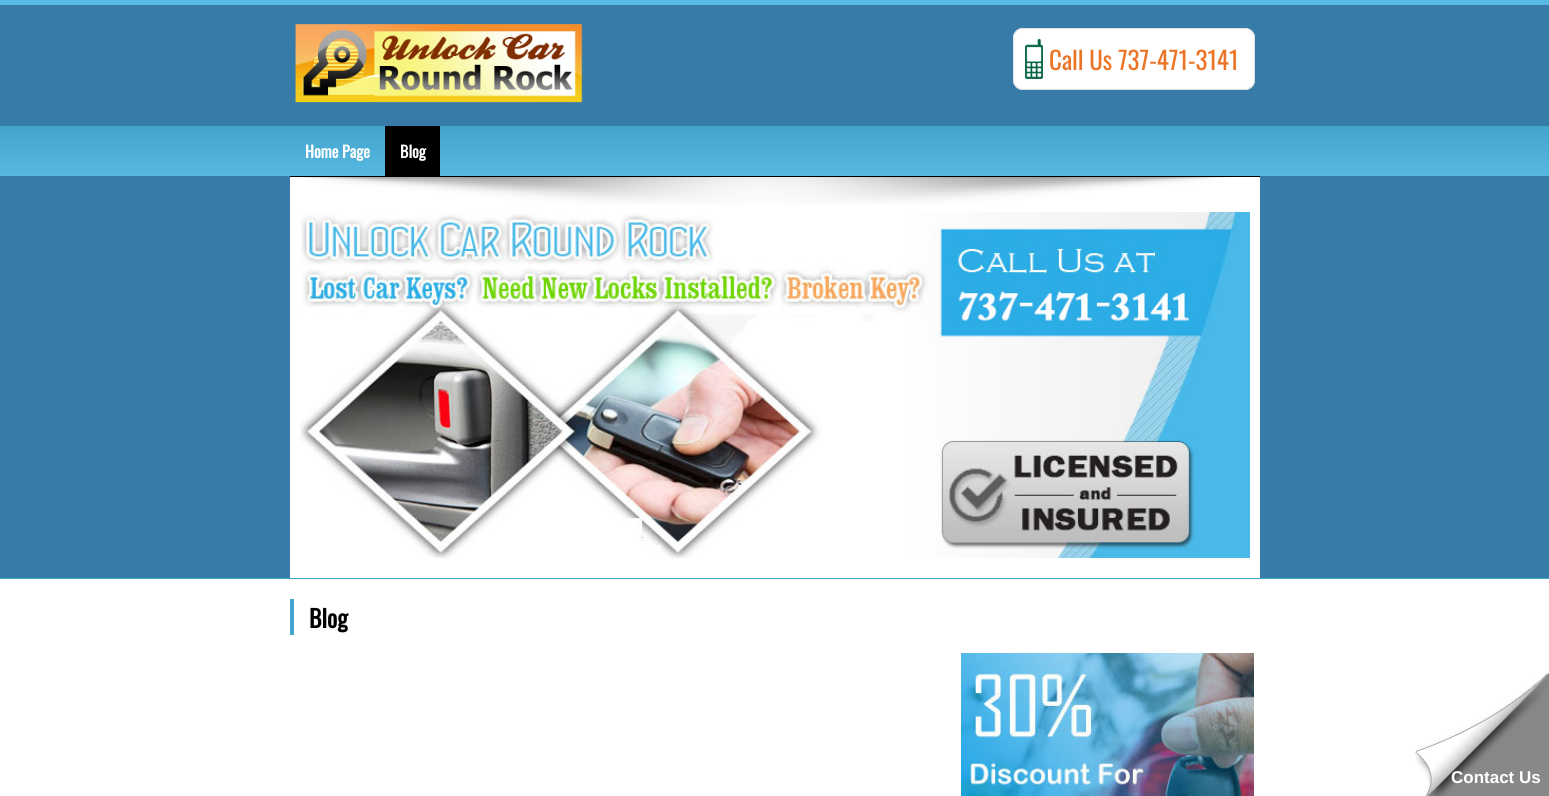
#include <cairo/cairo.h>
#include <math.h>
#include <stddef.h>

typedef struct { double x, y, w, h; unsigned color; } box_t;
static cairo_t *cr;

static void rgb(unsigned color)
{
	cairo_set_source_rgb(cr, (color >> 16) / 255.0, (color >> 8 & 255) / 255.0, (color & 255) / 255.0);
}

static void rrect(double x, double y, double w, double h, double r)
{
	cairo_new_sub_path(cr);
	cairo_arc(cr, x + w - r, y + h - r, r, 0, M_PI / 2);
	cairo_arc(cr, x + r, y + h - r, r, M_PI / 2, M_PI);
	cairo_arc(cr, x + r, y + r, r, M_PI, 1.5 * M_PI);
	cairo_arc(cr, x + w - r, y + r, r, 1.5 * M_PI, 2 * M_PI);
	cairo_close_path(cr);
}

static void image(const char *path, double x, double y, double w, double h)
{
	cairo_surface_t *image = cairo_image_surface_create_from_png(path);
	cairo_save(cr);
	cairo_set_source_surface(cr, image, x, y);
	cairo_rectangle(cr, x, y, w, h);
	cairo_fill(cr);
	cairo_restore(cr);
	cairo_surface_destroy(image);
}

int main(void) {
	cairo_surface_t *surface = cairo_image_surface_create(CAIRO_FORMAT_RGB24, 1549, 796);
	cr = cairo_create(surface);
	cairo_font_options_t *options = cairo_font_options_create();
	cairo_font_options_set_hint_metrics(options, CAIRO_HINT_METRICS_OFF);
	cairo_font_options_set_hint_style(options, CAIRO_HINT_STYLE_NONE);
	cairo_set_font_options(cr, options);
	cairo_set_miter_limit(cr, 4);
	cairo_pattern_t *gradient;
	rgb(0x377ca8);
	cairo_paint(cr);
	rgb(0x58bae2);
	cairo_rectangle(cr, 0, 0, 1549, 5);
	cairo_fill(cr);
	image("img/1.png", 295, 23, 288, 80);
	rgb(0xffffff);
	rrect(1013, 28, 242, 62, 10);
	cairo_fill(cr);
	image("img/2.png", 1025, 39, 18, 40);
	rrect(1013.5, 28.5, 241, 61, 9.5);
	rgb(0xe0e0e0);
	cairo_set_line_width(cr, 1);
	cairo_stroke(cr);
	gradient = cairo_pattern_create_linear(775, 126, 775, 176);
	cairo_pattern_add_color_stop_rgba(gradient, 0, 0.263, 0.647, 0.804, 1);
	cairo_pattern_add_color_stop_rgba(gradient, 1, 0.341, 0.725, 0.882, 1);
	cairo_set_source(cr, gradient);
	cairo_pattern_destroy(gradient);
	cairo_rectangle(cr, 0, 126, 1549, 50);
	cairo_fill(cr);
	rgb(0x000000);
	cairo_rectangle(cr, 385, 126, 55, 50);
	cairo_fill(cr);
	rgb(0xffffff);
	cairo_rectangle(cr, 290, 177, 970, 401);
	cairo_fill(cr);
	image("img/3.png", 294, 177, 938, 27);
	rgb(0x000000);
	cairo_rectangle(cr, 290, 176, 970, 1);
	cairo_fill(cr);
	image("img/4.png", 300, 212, 950, 346);
	{
		static const box_t items[] = {
			{0, 579, 1549, 217, 0xffffff},
			{0, 578, 1549, 1, 0x43a5cd},
			{290, 599, 4, 36, 0x43a5cd},
		};
		for (size_t i = 0; i < sizeof items / sizeof *items; i++) {
			rgb(items[i].color);
			cairo_rectangle(cr, items[i].x, items[i].y, items[i].w, items[i].h);
			cairo_fill(cr);
		}
	}
	image("img/5.png", 961, 653, 293, 143);
	rgb(0x888888);
	cairo_new_path(cr);
	cairo_move_to(cr, 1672, 796);
	cairo_line_to(cr, 1426, 796);
	cairo_line_to(cr, 1549, 673);
	cairo_close_path(cr);
	cairo_fill(cr);
	image("img/6.png", 1415, 673, 133, 123);
	cairo_select_font_face(cr, "Oswald", CAIRO_FONT_SLANT_NORMAL, CAIRO_FONT_WEIGHT_NORMAL);
	cairo_set_font_size(cr, 25);
	rgb(0xec7427);
	cairo_move_to(cr, 1049, 70);
	cairo_show_text(cr, "Call Us 737-471-3141");
	cairo_select_font_face(cr, "Oswald", CAIRO_FONT_SLANT_NORMAL, CAIRO_FONT_WEIGHT_BOLD);
	cairo_set_font_size(cr, 16);
	rgb(0xffffff);
	cairo_move_to(cr, 305, 158);
	cairo_show_text(cr, "Home Page");
	cairo_move_to(cr, 400, 158);
	cairo_show_text(cr, "Blog");
	cairo_set_font_size(cr, 24);
	rgb(0x000000);
	cairo_move_to(cr, 309, 628);
	cairo_show_text(cr, "Blog");
	cairo_select_font_face(cr, "Liberation Sans", CAIRO_FONT_SLANT_NORMAL, CAIRO_FONT_WEIGHT_BOLD);
	cairo_set_font_size(cr, 17);
	rgb(0xffffff);
	cairo_move_to(cr, 1451, 783);
	cairo_show_text(cr, "Contact Us");
	cairo_surface_write_to_png(surface, "page.png");
	cairo_font_options_destroy(options);
	cairo_destroy(cr);
	cairo_surface_destroy(surface);
	return 0;
}
